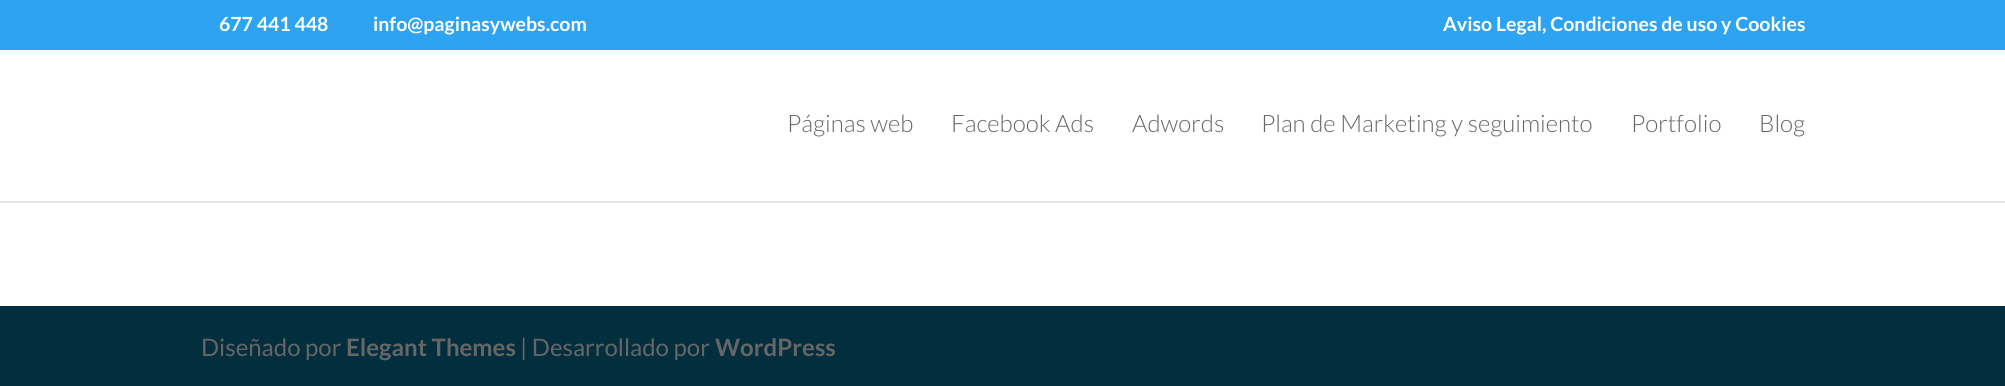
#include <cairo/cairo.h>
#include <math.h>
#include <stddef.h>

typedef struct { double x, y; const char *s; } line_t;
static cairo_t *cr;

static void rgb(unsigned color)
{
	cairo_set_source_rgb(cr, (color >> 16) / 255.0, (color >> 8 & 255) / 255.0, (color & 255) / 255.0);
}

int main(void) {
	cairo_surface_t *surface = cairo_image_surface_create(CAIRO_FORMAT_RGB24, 2005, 386);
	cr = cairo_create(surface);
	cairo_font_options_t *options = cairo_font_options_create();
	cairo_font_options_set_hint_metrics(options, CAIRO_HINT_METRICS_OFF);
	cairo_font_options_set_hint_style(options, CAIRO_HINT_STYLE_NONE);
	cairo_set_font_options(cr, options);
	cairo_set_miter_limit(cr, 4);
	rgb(0xffffff);
	cairo_paint(cr);
	rgb(0x2ea3f2);
	cairo_rectangle(cr, 0, 0, 2005, 50);
	cairo_fill(cr);
	rgb(0xe6e6e6);
	cairo_new_path(cr);
	cairo_move_to(cr, 0, 201);
	cairo_line_to(cr, 0, 203);
	cairo_line_to(cr, 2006, 203);
	cairo_line_to(cr, 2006, 47);
	cairo_line_to(cr, 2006, 201);
	cairo_close_path(cr);
	cairo_fill(cr);
	rgb(0x032e3e);
	cairo_rectangle(cr, 0, 306, 2005, 80);
	cairo_fill(cr);
	cairo_select_font_face(cr, "Lato", CAIRO_FONT_SLANT_NORMAL, CAIRO_FONT_WEIGHT_BOLD);
	cairo_set_font_size(cr, 19.5);
	rgb(0xffffff);
	{
		static const line_t items[] = {
			{219, 31, "677 441 448"},
			{373, 31, "info@paginasywebs.com"},
			{1443, 31, "Aviso Legal, Condiciones de uso y Cookies"},
		};
		for (size_t i = 0; i < sizeof items / sizeof *items; i++) {
			cairo_move_to(cr, items[i].x, items[i].y);
			cairo_show_text(cr, items[i].s);
		}
	}
	cairo_select_font_face(cr, "Lato Light", CAIRO_FONT_SLANT_NORMAL, CAIRO_FONT_WEIGHT_NORMAL);
	cairo_set_font_size(cr, 24);
	rgb(0x666666);
	{
		static const line_t items[] = {
			{787, 132, "Páginas web"},
			{951, 132, "Facebook Ads"},
			{1132, 132, "Adwords"},
			{1261, 132, "Plan de Marketing y seguimiento"},
			{1631, 132, "Portfolio"},
			{1759, 132, "Blog"},
		};
		for (size_t i = 0; i < sizeof items / sizeof *items; i++) {
			cairo_move_to(cr, items[i].x, items[i].y);
			cairo_show_text(cr, items[i].s);
		}
	}
	cairo_select_font_face(cr, "Lato", CAIRO_FONT_SLANT_NORMAL, CAIRO_FONT_WEIGHT_NORMAL);
	cairo_move_to(cr, 201, 356);
	cairo_show_text(cr, "Diseñado por");
	cairo_select_font_face(cr, "Lato", CAIRO_FONT_SLANT_NORMAL, CAIRO_FONT_WEIGHT_BOLD);
	cairo_move_to(cr, 346, 356);
	cairo_show_text(cr, "Elegant Themes");
	cairo_select_font_face(cr, "Lato", CAIRO_FONT_SLANT_NORMAL, CAIRO_FONT_WEIGHT_NORMAL);
	cairo_move_to(cr, 520, 356);
	cairo_show_text(cr, "| Desarrollado por");
	cairo_select_font_face(cr, "Lato", CAIRO_FONT_SLANT_NORMAL, CAIRO_FONT_WEIGHT_BOLD);
	cairo_move_to(cr, 715, 356);
	cairo_show_text(cr, "WordPress");
	cairo_surface_write_to_png(surface, "page.png");
	cairo_font_options_destroy(options);
	cairo_destroy(cr);
	cairo_surface_destroy(surface);
	return 0;
}
